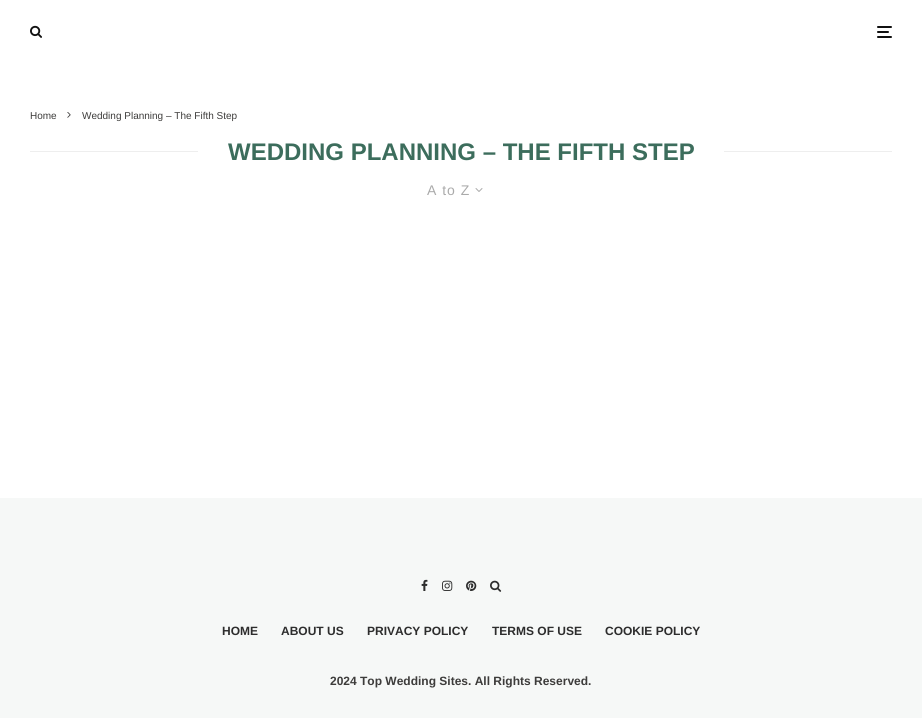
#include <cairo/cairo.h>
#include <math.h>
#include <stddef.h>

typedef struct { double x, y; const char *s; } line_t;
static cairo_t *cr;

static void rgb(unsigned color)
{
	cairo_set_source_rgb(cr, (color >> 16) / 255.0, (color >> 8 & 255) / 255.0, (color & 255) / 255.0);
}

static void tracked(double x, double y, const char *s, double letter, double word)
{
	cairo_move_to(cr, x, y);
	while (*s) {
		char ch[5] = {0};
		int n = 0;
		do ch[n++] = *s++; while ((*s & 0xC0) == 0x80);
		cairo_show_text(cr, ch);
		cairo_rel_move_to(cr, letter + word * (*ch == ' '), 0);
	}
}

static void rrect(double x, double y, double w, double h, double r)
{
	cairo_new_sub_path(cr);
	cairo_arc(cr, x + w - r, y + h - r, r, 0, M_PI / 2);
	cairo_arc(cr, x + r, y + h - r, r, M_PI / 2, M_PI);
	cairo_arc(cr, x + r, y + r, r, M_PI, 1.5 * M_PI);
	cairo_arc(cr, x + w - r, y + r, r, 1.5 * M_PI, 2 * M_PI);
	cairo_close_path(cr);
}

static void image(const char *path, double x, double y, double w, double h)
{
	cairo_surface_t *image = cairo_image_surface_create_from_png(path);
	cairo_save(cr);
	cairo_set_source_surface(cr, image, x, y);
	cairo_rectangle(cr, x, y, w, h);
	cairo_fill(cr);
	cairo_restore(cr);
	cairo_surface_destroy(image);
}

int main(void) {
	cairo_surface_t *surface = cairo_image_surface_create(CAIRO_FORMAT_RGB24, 922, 718);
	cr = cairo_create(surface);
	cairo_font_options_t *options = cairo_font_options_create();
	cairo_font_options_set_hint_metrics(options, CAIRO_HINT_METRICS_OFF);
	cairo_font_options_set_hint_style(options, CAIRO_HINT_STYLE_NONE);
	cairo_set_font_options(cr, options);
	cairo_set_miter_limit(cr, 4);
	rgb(0xffffff);
	cairo_paint(cr);
	image("img/1.png", 30, 25, 12, 13);
	rgb(0x111111);
	rrect(877, 31, 12, 2, 1);
	cairo_fill(cr);
	rrect(877, 26, 15, 2, 1);
	cairo_fill(cr);
	rrect(877, 36, 15, 2, 1);
	cairo_fill(cr);
	image("img/2.png", 67, 112, 4, 6);
	rgb(0xeeeeee);
	cairo_rectangle(cr, 30, 151, 168, 1);
	cairo_fill(cr);
	cairo_rectangle(cr, 724, 151, 168, 1);
	cairo_fill(cr);
	image("img/3.png", 475, 188, 8, 4);
	rgb(0xf6f8f7);
	cairo_rectangle(cr, 0, 498, 922, 220);
	cairo_fill(cr);
	image("img/4.png", 421, 579, 7, 12);
	image("img/5.png", 442, 580, 11, 11);
	image("img/6.png", 466, 580, 11, 11);
	image("img/7.png", 490, 580, 12, 12);
	cairo_select_font_face(cr, "Liberation Sans", CAIRO_FONT_SLANT_NORMAL, CAIRO_FONT_WEIGHT_NORMAL);
	cairo_set_font_size(cr, 10);
	rgb(0x3d3c3b);
	cairo_move_to(cr, 30, 119);
	cairo_show_text(cr, "Home");
	cairo_move_to(cr, 82, 119);
	cairo_show_text(cr, "Wedding Planning – The Fifth Step");
	cairo_select_font_face(cr, "Liberation Sans", CAIRO_FONT_SLANT_NORMAL, CAIRO_FONT_WEIGHT_BOLD);
	cairo_set_font_size(cr, 24);
	rgb(0x3c6d5c);
	cairo_move_to(cr, 228, 160);
	cairo_show_text(cr, "WEDDING PLANNING – THE FIFTH STEP");
	cairo_select_font_face(cr, "Liberation Sans", CAIRO_FONT_SLANT_NORMAL, CAIRO_FONT_WEIGHT_NORMAL);
	cairo_set_font_size(cr, 14);
	rgb(0xaaaaaa);
	tracked(427, 195, "A to Z", 1, 0);
	cairo_select_font_face(cr, "Liberation Sans", CAIRO_FONT_SLANT_NORMAL, CAIRO_FONT_WEIGHT_BOLD);
	cairo_set_font_size(cr, 12);
	rgb(0x2d2d2d);
	{
		static const line_t items[] = {
			{222, 635, "HOME"},
			{281, 635, "ABOUT US"},
			{367, 635, "PRIVACY POLICY"},
			{492, 635, "TERMS OF USE"},
			{605, 635, "COOKIE POLICY"},
		};
		for (size_t i = 0; i < sizeof items / sizeof *items; i++) {
			cairo_move_to(cr, items[i].x, items[i].y);
			cairo_show_text(cr, items[i].s);
		}
	}
	rgb(0x3d3c3b);
	cairo_move_to(cr, 330, 685);
	cairo_show_text(cr, "2024 Top Wedding Sites. All Rights Reserved.");
	cairo_surface_write_to_png(surface, "page.png");
	cairo_font_options_destroy(options);
	cairo_destroy(cr);
	cairo_surface_destroy(surface);
	return 0;
}
